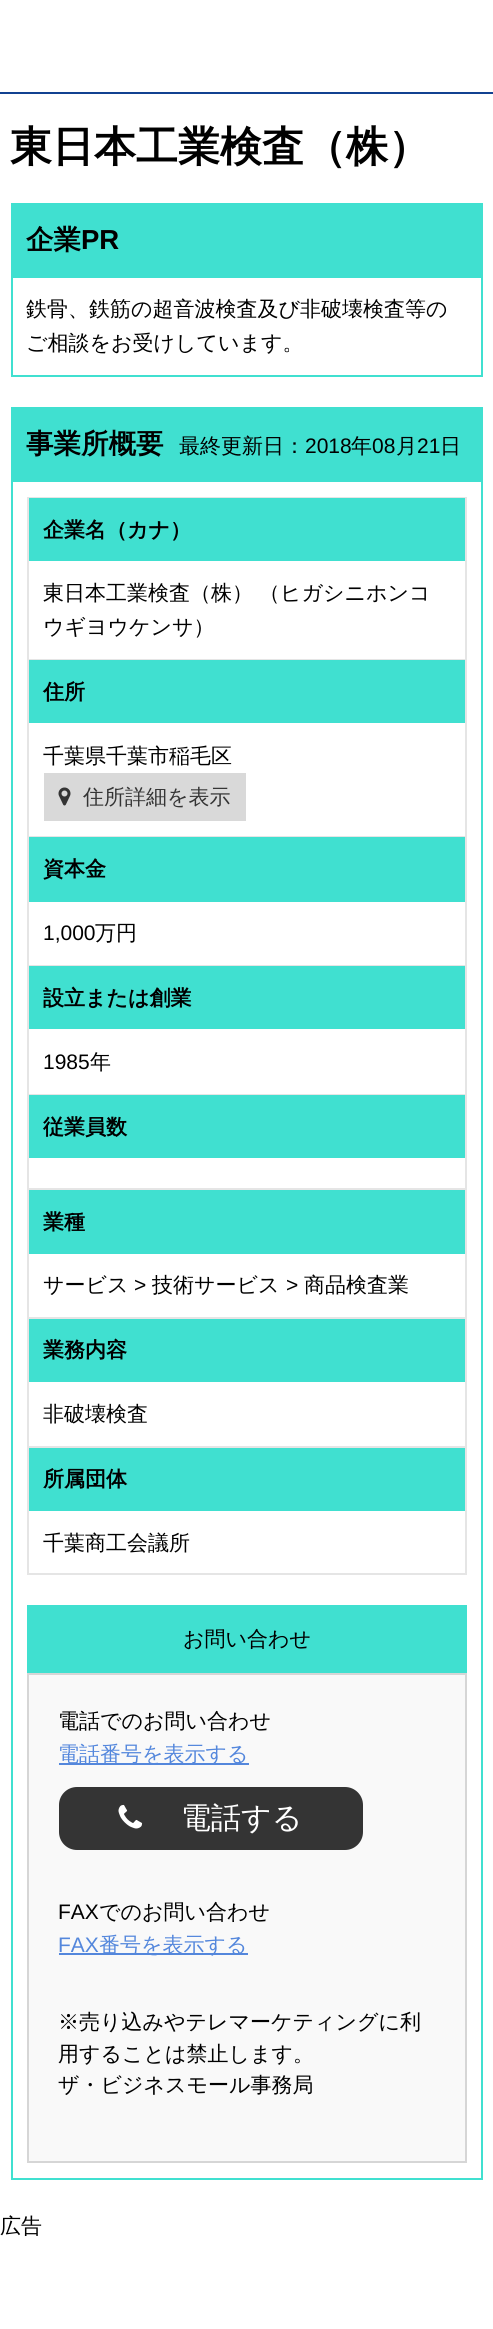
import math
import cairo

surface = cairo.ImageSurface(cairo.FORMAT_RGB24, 493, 2329)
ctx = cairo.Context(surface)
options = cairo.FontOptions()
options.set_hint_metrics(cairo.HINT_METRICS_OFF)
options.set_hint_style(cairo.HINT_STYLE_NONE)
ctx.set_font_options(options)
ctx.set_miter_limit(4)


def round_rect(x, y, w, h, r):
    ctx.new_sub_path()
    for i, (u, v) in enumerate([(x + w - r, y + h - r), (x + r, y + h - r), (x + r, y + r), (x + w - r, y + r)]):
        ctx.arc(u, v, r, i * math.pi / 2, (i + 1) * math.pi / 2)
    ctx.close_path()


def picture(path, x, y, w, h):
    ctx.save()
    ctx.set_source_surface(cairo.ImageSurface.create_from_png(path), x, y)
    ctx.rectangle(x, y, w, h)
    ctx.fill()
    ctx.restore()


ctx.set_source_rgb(1, 1, 1)
ctx.paint()
ctx.set_source_rgb(0.067, 0.255, 0.569)
ctx.rectangle(0, 92, 493, 2)
ctx.fill()
ctx.select_font_face("WenQuanYi Zen Hei", cairo.FONT_SLANT_NORMAL, cairo.FONT_WEIGHT_BOLD)
ctx.set_font_size(42)
ctx.set_source_rgb(0, 0, 0)
ctx.move_to(10, 161)
ctx.show_text("東日本工業検査（株）")
ctx.rectangle(12, 204, 470, 172)
ctx.set_source_rgb(0.251, 0.878, 0.816)
ctx.stroke()
ctx.rectangle(13, 205, 468, 73)
ctx.fill()
ctx.set_font_size(27.5)
ctx.set_source_rgb(0, 0, 0)
ctx.move_to(26, 249)
ctx.show_text("企業")
ctx.select_font_face("Liberation Sans", cairo.FONT_SLANT_NORMAL, cairo.FONT_WEIGHT_BOLD)
ctx.move_to(81, 249)
ctx.show_text("PR")
ctx.select_font_face("WenQuanYi Zen Hei Medium")
ctx.set_font_size(21)
ctx.move_to(26, 316)
ctx.show_text("鉄骨、鉄筋の超音波検査及び非破壊検査等の")
ctx.move_to(26, 350)
ctx.show_text("ご相談をお受けしています。")
ctx.rectangle(12, 408, 470, 1771)
ctx.set_source_rgb(0.251, 0.878, 0.816)
ctx.stroke()
ctx.rectangle(13, 409, 468, 73)
ctx.fill()
ctx.select_font_face("WenQuanYi Zen Hei", cairo.FONT_SLANT_NORMAL, cairo.FONT_WEIGHT_BOLD)
ctx.set_font_size(27.5)
ctx.set_source_rgb(0, 0, 0)
ctx.move_to(26, 453)
ctx.show_text("事業所概要")
ctx.select_font_face("WenQuanYi Zen Hei Medium")
ctx.set_font_size(21)
ctx.move_to(179, 453)
ctx.show_text("最終更新日：")
ctx.select_font_face("Liberation Sans")
ctx.move_to(305, 453)
ctx.show_text("2018")
ctx.select_font_face("WenQuanYi Zen Hei Medium")
ctx.move_to(351, 453)
ctx.show_text("年")
ctx.select_font_face("Liberation Sans")
ctx.move_to(372, 453)
ctx.show_text("08")
ctx.select_font_face("WenQuanYi Zen Hei Medium")
ctx.move_to(396, 453)
ctx.show_text("月")
ctx.select_font_face("Liberation Sans")
ctx.move_to(417, 453)
ctx.show_text("21")
ctx.select_font_face("WenQuanYi Zen Hei Medium")
ctx.move_to(440, 453)
ctx.show_text("日")
ctx.set_source_rgb(0.898, 0.898, 0.898)
ctx.rectangle(27, 497, 440, 1)
ctx.fill()
ctx.rectangle(465, 497, 2, 162)
ctx.fill()
ctx.rectangle(27, 497, 2, 162)
ctx.fill()
ctx.set_source_rgb(0.251, 0.878, 0.816)
ctx.rectangle(29, 498, 436, 63)
ctx.fill()
ctx.select_font_face("WenQuanYi Zen Hei", cairo.FONT_SLANT_NORMAL, cairo.FONT_WEIGHT_BOLD)
ctx.set_source_rgb(0, 0, 0)
ctx.move_to(43, 537)
ctx.show_text("企業名（カナ）")
ctx.select_font_face("WenQuanYi Zen Hei Medium")
ctx.move_to(43, 600)
ctx.show_text("東日本工業検査（株）")
ctx.move_to(259, 600)
ctx.show_text("（ヒガシニホンコ")
ctx.move_to(43, 634)
ctx.show_text("ウギヨウケンサ）")
ctx.set_source_rgb(0.898, 0.898, 0.898)
ctx.rectangle(27, 659, 440, 1)
ctx.fill()
ctx.rectangle(465, 659, 2, 177)
ctx.fill()
ctx.rectangle(27, 659, 2, 177)
ctx.fill()
ctx.set_source_rgb(0.251, 0.878, 0.816)
ctx.rectangle(29, 660, 436, 63)
ctx.fill()
ctx.select_font_face("WenQuanYi Zen Hei", cairo.FONT_SLANT_NORMAL, cairo.FONT_WEIGHT_BOLD)
ctx.set_source_rgb(0, 0, 0)
ctx.move_to(43, 699)
ctx.show_text("住所")
ctx.select_font_face("WenQuanYi Zen Hei Medium")
ctx.move_to(43, 763)
ctx.show_text("千葉県千葉市稲毛区")
ctx.set_source_rgb(0.851, 0.851, 0.851)
ctx.rectangle(44, 773, 202, 48)
ctx.fill()
picture("img1.png", 58, 787, 13, 19)
ctx.set_source_rgb(0.204, 0.204, 0.204)
ctx.move_to(83, 804)
ctx.show_text("住所詳細を表示")
ctx.set_source_rgb(0.898, 0.898, 0.898)
ctx.rectangle(27, 836, 440, 1)
ctx.fill()
ctx.rectangle(465, 836, 2, 129)
ctx.fill()
ctx.rectangle(27, 836, 2, 129)
ctx.fill()
ctx.set_source_rgb(0.251, 0.878, 0.816)
ctx.rectangle(29, 837, 436, 65)
ctx.fill()
ctx.select_font_face("WenQuanYi Zen Hei", cairo.FONT_SLANT_NORMAL, cairo.FONT_WEIGHT_BOLD)
ctx.set_source_rgb(0, 0, 0)
ctx.move_to(43, 876)
ctx.show_text("資本金")
ctx.select_font_face("Liberation Sans")
ctx.move_to(43, 940)
ctx.show_text("1,000")
ctx.select_font_face("WenQuanYi Zen Hei Medium")
ctx.move_to(95, 940)
ctx.show_text("万円")
ctx.set_source_rgb(0.898, 0.898, 0.898)
ctx.rectangle(27, 965, 440, 1)
ctx.fill()
ctx.rectangle(465, 965, 2, 129)
ctx.fill()
ctx.rectangle(27, 965, 2, 129)
ctx.fill()
ctx.set_source_rgb(0.251, 0.878, 0.816)
ctx.rectangle(29, 966, 436, 63)
ctx.fill()
ctx.select_font_face("WenQuanYi Zen Hei", cairo.FONT_SLANT_NORMAL, cairo.FONT_WEIGHT_BOLD)
ctx.set_source_rgb(0, 0, 0)
ctx.move_to(43, 1005)
ctx.show_text("設立または創業")
ctx.select_font_face("Liberation Sans")
ctx.move_to(43, 1069)
ctx.show_text("1985")
ctx.select_font_face("WenQuanYi Zen Hei Medium")
ctx.move_to(90, 1069)
ctx.show_text("年")
ctx.set_source_rgb(0.898, 0.898, 0.898)
ctx.rectangle(27, 1094, 440, 1)
ctx.fill()
ctx.rectangle(465, 1094, 2, 94)
ctx.fill()
ctx.rectangle(27, 1094, 2, 94)
ctx.fill()
ctx.set_source_rgb(0.251, 0.878, 0.816)
ctx.rectangle(29, 1095, 436, 63)
ctx.fill()
ctx.select_font_face("WenQuanYi Zen Hei", cairo.FONT_SLANT_NORMAL, cairo.FONT_WEIGHT_BOLD)
ctx.set_source_rgb(0, 0, 0)
ctx.move_to(43, 1134)
ctx.show_text("従業員数")
ctx.set_source_rgb(0.898, 0.898, 0.898)
ctx.rectangle(27, 1188, 440, 2)
ctx.fill()
ctx.rectangle(465, 1188, 2, 129)
ctx.fill()
ctx.rectangle(27, 1188, 2, 129)
ctx.fill()
ctx.set_source_rgb(0.251, 0.878, 0.816)
ctx.rectangle(29, 1190, 436, 64)
ctx.fill()
ctx.set_source_rgb(0, 0, 0)
ctx.move_to(43, 1229)
ctx.show_text("業種")
ctx.select_font_face("WenQuanYi Zen Hei Medium")
ctx.move_to(43, 1292)
ctx.show_text("サービス")
ctx.select_font_face("Liberation Sans")
ctx.move_to(134, 1292)
ctx.show_text(">")
ctx.select_font_face("WenQuanYi Zen Hei Medium")
ctx.move_to(152, 1292)
ctx.show_text("技術サービス")
ctx.select_font_face("Liberation Sans")
ctx.move_to(286, 1292)
ctx.show_text(">")
ctx.select_font_face("WenQuanYi Zen Hei Medium")
ctx.move_to(304, 1292)
ctx.show_text("商品検査業")
ctx.set_source_rgb(0.898, 0.898, 0.898)
ctx.rectangle(27, 1317, 440, 2)
ctx.fill()
ctx.rectangle(465, 1317, 2, 129)
ctx.fill()
ctx.rectangle(27, 1317, 2, 129)
ctx.fill()
ctx.set_source_rgb(0.251, 0.878, 0.816)
ctx.rectangle(29, 1319, 436, 63)
ctx.fill()
ctx.select_font_face("WenQuanYi Zen Hei", cairo.FONT_SLANT_NORMAL, cairo.FONT_WEIGHT_BOLD)
ctx.set_source_rgb(0, 0, 0)
ctx.move_to(43, 1357)
ctx.show_text("業務内容")
ctx.select_font_face("WenQuanYi Zen Hei Medium")
ctx.move_to(43, 1421)
ctx.show_text("非破壊検査")
ctx.rectangle(28, 1447, 438, 127)
ctx.set_source_rgb(0.898, 0.898, 0.898)
ctx.stroke()
ctx.set_source_rgb(0.251, 0.878, 0.816)
ctx.rectangle(29, 1448, 436, 63)
ctx.fill()
ctx.select_font_face("WenQuanYi Zen Hei", cairo.FONT_SLANT_NORMAL, cairo.FONT_WEIGHT_BOLD)
ctx.set_source_rgb(0, 0, 0)
ctx.move_to(43, 1486)
ctx.show_text("所属団体")
ctx.select_font_face("WenQuanYi Zen Hei Medium")
ctx.move_to(43, 1550)
ctx.show_text("千葉商工会議所")
ctx.set_source_rgb(0.251, 0.878, 0.816)
ctx.rectangle(27, 1605, 440, 68)
ctx.fill()
ctx.set_source_rgb(0, 0, 0)
ctx.move_to(183, 1646)
ctx.show_text("お問い合わせ")
ctx.set_source_rgb(0.976, 0.976, 0.976)
ctx.rectangle(28, 1674, 438, 488)
ctx.fill_preserve()
ctx.set_source_rgb(0.839, 0.839, 0.839)
ctx.stroke()
ctx.set_source_rgb(0, 0, 0)
ctx.move_to(58, 1728)
ctx.show_text("電話でのお問い合わせ")
ctx.set_source_rgb(0.329, 0.529, 0.863)
ctx.rectangle(59, 1763, 190, 2)
ctx.fill()
ctx.move_to(58, 1761)
ctx.show_text("電話番号を表示する")
ctx.set_source_rgb(0.204, 0.204, 0.204)
round_rect(59, 1787, 304, 63, 18)
ctx.fill()
picture("img2.png", 118, 1804, 25, 25)
ctx.set_font_size(30)
ctx.set_source_rgb(1, 1, 1)
ctx.move_to(181, 1828)
ctx.show_text("電話する")
ctx.select_font_face("Liberation Sans")
ctx.set_font_size(21)
ctx.set_source_rgb(0, 0, 0)
ctx.move_to(58, 1919)
ctx.show_text("FAX")
ctx.select_font_face("WenQuanYi Zen Hei Medium")
ctx.move_to(99, 1919)
ctx.show_text("でのお問い合わせ")
ctx.select_font_face("Liberation Sans")
ctx.set_source_rgb(0.329, 0.529, 0.863)
ctx.move_to(58, 1952)
ctx.show_text("FAX")
ctx.rectangle(59, 1953, 189, 2)
ctx.fill()
ctx.select_font_face("WenQuanYi Zen Hei Medium")
ctx.move_to(99, 1952)
ctx.show_text("番号を表示する")
ctx.set_source_rgb(0, 0, 0)
ctx.move_to(58, 2029)
ctx.show_text("※売り込みやテレマーケティングに利")
ctx.move_to(58, 2061)
ctx.show_text("用することは禁止します。")
ctx.move_to(58, 2092)
ctx.show_text("ザ・ビジネスモール事務局")
ctx.move_to(0, 2233)
ctx.show_text("広告")
surface.write_to_png("page.png")
